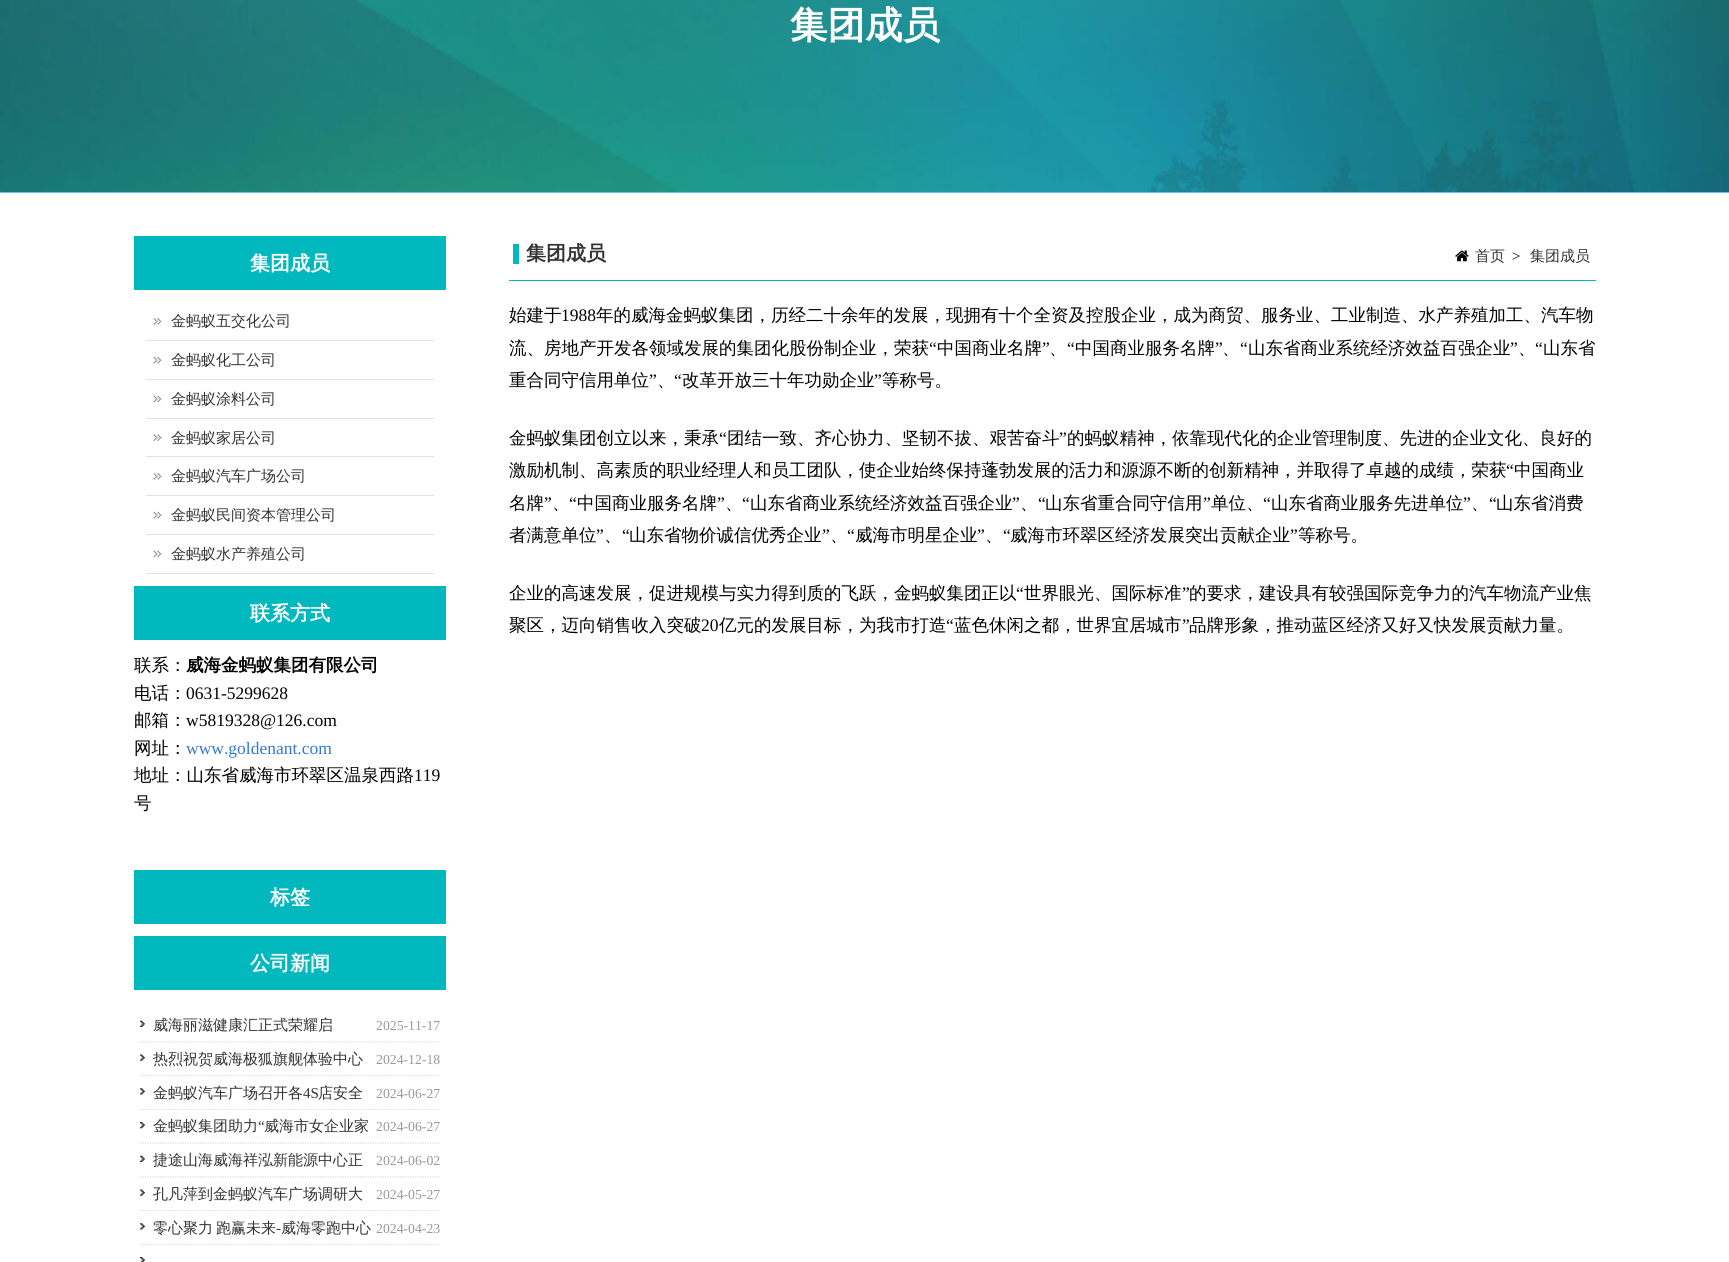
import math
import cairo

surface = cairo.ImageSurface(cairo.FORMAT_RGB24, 1729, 1262)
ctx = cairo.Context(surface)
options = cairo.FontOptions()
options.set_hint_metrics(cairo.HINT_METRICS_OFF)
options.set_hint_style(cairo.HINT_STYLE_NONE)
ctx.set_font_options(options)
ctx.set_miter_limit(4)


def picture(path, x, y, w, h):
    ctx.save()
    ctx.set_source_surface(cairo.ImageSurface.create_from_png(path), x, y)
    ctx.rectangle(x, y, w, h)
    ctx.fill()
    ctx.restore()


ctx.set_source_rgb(1, 1, 1)
ctx.paint()
ctx.set_source_rgb(0.455, 0.733, 0.945)
ctx.rectangle(0, 192, 1729, 1)
ctx.fill()
picture("img1.png", 0, 0, 1729, 192)
ctx.select_font_face("WenQuanYi Zen Hei", cairo.FONT_SLANT_NORMAL, cairo.FONT_WEIGHT_BOLD)
ctx.set_font_size(37.5)
ctx.set_source_rgb(1, 1, 1)
ctx.move_to(790, 38)
ctx.show_text("集团成员")
ctx.set_source_rgb(0, 0.722, 0.745)
ctx.rectangle(134, 236, 312, 54)
ctx.fill()
ctx.set_font_size(20)
ctx.set_source_rgb(1, 1, 1)
ctx.move_to(250, 270)
ctx.show_text("集团成员")
ctx.set_source_rgb(0.886, 0.886, 0.886)
ctx.rectangle(146, 340, 288, 1)
ctx.fill()
picture("img2.png", 153, 318, 9, 7)
ctx.select_font_face("WenQuanYi Zen Hei Medium")
ctx.set_font_size(15)
ctx.set_source_rgb(0.2, 0.2, 0.2)
ctx.move_to(171, 326)
ctx.show_text("金蚂蚁五交化公司")
ctx.set_source_rgb(0.886, 0.886, 0.886)
ctx.rectangle(146, 379, 288, 1)
ctx.fill()
picture("img3.png", 153, 356, 9, 8)
ctx.set_source_rgb(0.2, 0.2, 0.2)
ctx.move_to(171, 365)
ctx.show_text("金蚂蚁化工公司")
ctx.set_source_rgb(0.886, 0.886, 0.886)
ctx.rectangle(146, 418, 288, 1)
ctx.fill()
picture("img4.png", 153, 395, 9, 8)
ctx.set_source_rgb(0.2, 0.2, 0.2)
ctx.move_to(171, 404)
ctx.show_text("金蚂蚁涂料公司")
ctx.set_source_rgb(0.886, 0.886, 0.886)
ctx.rectangle(146, 456, 288, 1)
ctx.fill()
picture("img5.png", 153, 434, 9, 7)
ctx.set_source_rgb(0.2, 0.2, 0.2)
ctx.move_to(171, 443)
ctx.show_text("金蚂蚁家居公司")
ctx.set_source_rgb(0.886, 0.886, 0.886)
ctx.rectangle(146, 495, 288, 1)
ctx.fill()
picture("img2.png", 153, 473, 9, 7)
ctx.set_source_rgb(0.2, 0.2, 0.2)
ctx.move_to(171, 481)
ctx.show_text("金蚂蚁汽车广场公司")
ctx.set_source_rgb(0.886, 0.886, 0.886)
ctx.rectangle(146, 534, 288, 1)
ctx.fill()
picture("img3.png", 153, 511, 9, 8)
ctx.set_source_rgb(0.2, 0.2, 0.2)
ctx.move_to(171, 520)
ctx.show_text("金蚂蚁民间资本管理公司")
ctx.set_source_rgb(0.886, 0.886, 0.886)
ctx.rectangle(146, 573, 288, 1)
ctx.fill()
picture("img4.png", 153, 550, 9, 8)
ctx.set_source_rgb(0.2, 0.2, 0.2)
ctx.move_to(171, 559)
ctx.show_text("金蚂蚁水产养殖公司")
ctx.set_source_rgb(0, 0.722, 0.745)
ctx.rectangle(134, 586, 312, 54)
ctx.fill()
ctx.select_font_face("WenQuanYi Zen Hei", cairo.FONT_SLANT_NORMAL, cairo.FONT_WEIGHT_BOLD)
ctx.set_font_size(20)
ctx.set_source_rgb(1, 1, 1)
ctx.move_to(250, 620)
ctx.show_text("联系方式")
ctx.select_font_face("WenQuanYi Zen Hei Medium")
ctx.set_font_size(17.5)
ctx.set_source_rgb(0, 0, 0)
ctx.move_to(134, 671)
ctx.show_text("联系：")
ctx.select_font_face("WenQuanYi Zen Hei", cairo.FONT_SLANT_NORMAL, cairo.FONT_WEIGHT_BOLD)
ctx.move_to(186, 671)
ctx.show_text("威海金蚂蚁集团有限公司")
ctx.select_font_face("WenQuanYi Zen Hei Medium")
ctx.move_to(134, 699)
ctx.show_text("电话：")
ctx.select_font_face("Liberation Serif")
ctx.move_to(186, 699)
ctx.show_text("0631-5299628")
ctx.select_font_face("WenQuanYi Zen Hei Medium")
ctx.move_to(134, 726)
ctx.show_text("邮箱：")
ctx.select_font_face("Liberation Serif")
ctx.move_to(186, 726)
ctx.show_text("w5819328@126.com")
ctx.select_font_face("WenQuanYi Zen Hei Medium")
ctx.move_to(134, 754)
ctx.show_text("网址：")
ctx.select_font_face("Liberation Serif")
ctx.set_source_rgb(0.204, 0.478, 0.816)
ctx.move_to(186, 754)
ctx.show_text("www.goldenant.com")
ctx.select_font_face("WenQuanYi Zen Hei Medium")
ctx.set_source_rgb(0, 0, 0)
ctx.move_to(134, 781)
ctx.show_text("地址：山东省威海市环翠区温泉西路")
ctx.select_font_face("Liberation Serif")
ctx.move_to(414, 781)
ctx.show_text("119")
ctx.select_font_face("WenQuanYi Zen Hei Medium")
ctx.move_to(134, 809)
ctx.show_text("号")
ctx.set_source_rgb(0, 0.722, 0.745)
ctx.rectangle(134, 870, 312, 54)
ctx.fill()
ctx.select_font_face("WenQuanYi Zen Hei", cairo.FONT_SLANT_NORMAL, cairo.FONT_WEIGHT_BOLD)
ctx.set_font_size(20)
ctx.set_source_rgb(1, 1, 1)
ctx.move_to(270, 904)
ctx.show_text("标签")
ctx.set_source_rgb(0, 0.722, 0.745)
ctx.rectangle(134, 936, 312, 54)
ctx.fill()
ctx.set_source_rgb(1, 1, 1)
ctx.move_to(250, 970)
ctx.show_text("公司新闻")
picture("img6.png", 140, 1020, 5, 7)
ctx.new_path()
ctx.move_to(140, 1042)
ctx.line_to(440, 1042)
ctx.set_source_rgb(0.867, 0.867, 0.867)
ctx.set_line_width(1.2)
ctx.set_dash([1.25, 1.25])
ctx.stroke()
ctx.select_font_face("WenQuanYi Zen Hei Medium")
ctx.set_font_size(15)
ctx.set_source_rgb(0.2, 0.2, 0.2)
ctx.move_to(153, 1030)
ctx.show_text("威海丽滋健康汇正式荣耀启")
ctx.select_font_face("Liberation Serif")
ctx.set_font_size(13.75)
ctx.set_source_rgb(0.6, 0.6, 0.6)
ctx.move_to(376, 1030)
ctx.show_text("2025-11-17")
picture("img7.png", 140, 1054, 5, 7)
ctx.new_path()
ctx.move_to(140, 1075.5)
ctx.line_to(440, 1075.5)
ctx.set_source_rgb(0.867, 0.867, 0.867)
ctx.stroke()
ctx.select_font_face("WenQuanYi Zen Hei Medium")
ctx.set_font_size(15)
ctx.set_source_rgb(0.2, 0.2, 0.2)
ctx.move_to(153, 1064)
ctx.show_text("热烈祝贺威海极狐旗舰体验中心")
ctx.select_font_face("Liberation Serif")
ctx.set_font_size(13.75)
ctx.set_source_rgb(0.6, 0.6, 0.6)
ctx.move_to(376, 1064)
ctx.show_text("2024-12-18")
picture("img8.png", 140, 1088, 5, 7)
ctx.new_path()
ctx.move_to(140, 1109.5)
ctx.line_to(440, 1109.5)
ctx.set_source_rgb(0.867, 0.867, 0.867)
ctx.stroke()
ctx.select_font_face("WenQuanYi Zen Hei Medium")
ctx.set_font_size(15)
ctx.set_source_rgb(0.2, 0.2, 0.2)
ctx.move_to(153, 1098)
ctx.show_text("金蚂蚁汽车广场召开各")
ctx.select_font_face("Liberation Serif")
ctx.move_to(303, 1098)
ctx.show_text("4S")
ctx.select_font_face("WenQuanYi Zen Hei Medium")
ctx.move_to(318, 1098)
ctx.show_text("店安全")
ctx.select_font_face("Liberation Serif")
ctx.set_font_size(13.75)
ctx.set_source_rgb(0.6, 0.6, 0.6)
ctx.move_to(376, 1098)
ctx.show_text("2024-06-27")
picture("img9.png", 140, 1122, 5, 7)
ctx.new_path()
ctx.move_to(140, 1143)
ctx.line_to(440, 1143)
ctx.set_source_rgb(0.867, 0.867, 0.867)
ctx.stroke()
ctx.select_font_face("WenQuanYi Zen Hei Medium")
ctx.set_font_size(15)
ctx.set_source_rgb(0.2, 0.2, 0.2)
ctx.move_to(153, 1131)
ctx.show_text("金蚂蚁集团助力")
ctx.select_font_face("Liberation Serif")
ctx.move_to(258, 1131)
ctx.show_text("“")
ctx.select_font_face("WenQuanYi Zen Hei Medium")
ctx.move_to(264, 1131)
ctx.show_text("威海市女企业家")
ctx.select_font_face("Liberation Serif")
ctx.set_font_size(13.75)
ctx.set_source_rgb(0.6, 0.6, 0.6)
ctx.move_to(376, 1131)
ctx.show_text("2024-06-27")
picture("img6.png", 140, 1155, 5, 7)
ctx.new_path()
ctx.move_to(140, 1177)
ctx.line_to(440, 1177)
ctx.set_source_rgb(0.867, 0.867, 0.867)
ctx.stroke()
ctx.select_font_face("WenQuanYi Zen Hei Medium")
ctx.set_font_size(15)
ctx.set_source_rgb(0.2, 0.2, 0.2)
ctx.move_to(153, 1165)
ctx.show_text("捷途山海威海祥泓新能源中心正")
ctx.select_font_face("Liberation Serif")
ctx.set_font_size(13.75)
ctx.set_source_rgb(0.6, 0.6, 0.6)
ctx.move_to(376, 1165)
ctx.show_text("2024-06-02")
picture("img7.png", 140, 1189, 5, 7)
ctx.new_path()
ctx.move_to(140, 1210.5)
ctx.line_to(440, 1210.5)
ctx.set_source_rgb(0.867, 0.867, 0.867)
ctx.stroke()
ctx.select_font_face("WenQuanYi Zen Hei Medium")
ctx.set_font_size(15)
ctx.set_source_rgb(0.2, 0.2, 0.2)
ctx.move_to(153, 1199)
ctx.show_text("孔凡萍到金蚂蚁汽车广场调研大")
ctx.select_font_face("Liberation Serif")
ctx.set_font_size(13.75)
ctx.set_source_rgb(0.6, 0.6, 0.6)
ctx.move_to(376, 1199)
ctx.show_text("2024-05-27")
picture("img8.png", 140, 1223, 5, 7)
ctx.new_path()
ctx.move_to(140, 1244.5)
ctx.line_to(440, 1244.5)
ctx.set_source_rgb(0.867, 0.867, 0.867)
ctx.stroke()
ctx.select_font_face("WenQuanYi Zen Hei Medium")
ctx.set_font_size(15)
ctx.set_source_rgb(0.2, 0.2, 0.2)
ctx.move_to(153, 1233)
ctx.show_text("零心聚力")
ctx.move_to(216, 1233)
ctx.show_text("跑赢未来")
ctx.select_font_face("Liberation Serif")
ctx.move_to(276, 1233)
ctx.show_text("-")
ctx.select_font_face("WenQuanYi Zen Hei Medium")
ctx.move_to(281, 1233)
ctx.show_text("威海零跑中心")
ctx.select_font_face("Liberation Serif")
ctx.set_font_size(13.75)
ctx.set_source_rgb(0.6, 0.6, 0.6)
ctx.move_to(376, 1233)
ctx.show_text("2024-04-23")
picture("img10.png", 140, 1257, 5, 5)
ctx.set_source_rgb(0, 0.722, 0.745)
ctx.rectangle(509, 280, 1087, 1)
ctx.fill()
ctx.rectangle(513, 244, 6, 20)
ctx.fill()
ctx.select_font_face("WenQuanYi Zen Hei", cairo.FONT_SLANT_NORMAL, cairo.FONT_WEIGHT_BOLD)
ctx.set_font_size(20)
ctx.set_source_rgb(0.2, 0.2, 0.2)
ctx.move_to(526, 260)
ctx.show_text("集团成员")
picture("img11.png", 1455, 250, 14, 12)
ctx.select_font_face("WenQuanYi Zen Hei Medium")
ctx.set_font_size(15)
ctx.move_to(1475, 261)
ctx.show_text("首页")
ctx.select_font_face("Liberation Serif")
ctx.set_source_rgb(0, 0, 0)
ctx.move_to(1512, 261)
ctx.show_text(">")
ctx.select_font_face("WenQuanYi Zen Hei Medium")
ctx.set_source_rgb(0.2, 0.2, 0.2)
ctx.move_to(1530, 261)
ctx.show_text("集团成员")
ctx.set_font_size(17.5)
ctx.set_source_rgb(0, 0, 0)
ctx.move_to(509, 321)
ctx.show_text("始建于")
ctx.select_font_face("Liberation Serif")
ctx.move_to(561, 321)
ctx.show_text("1988")
ctx.select_font_face("WenQuanYi Zen Hei Medium")
ctx.move_to(596, 321)
ctx.show_text("年的威海金蚂蚁集团，历经二十余年的发展，现拥有十个全资及控股企业，成为商贸、服务业、工业制造、水产养殖加工、汽车物")
ctx.move_to(509, 354)
ctx.show_text("流、房地产开发各领域发展的集团化股份制企业，荣获")
ctx.select_font_face("Liberation Serif")
ctx.move_to(929, 354)
ctx.show_text("“")
ctx.select_font_face("WenQuanYi Zen Hei Medium")
ctx.move_to(937, 354)
ctx.show_text("中国商业名牌")
ctx.select_font_face("Liberation Serif")
ctx.move_to(1042, 354)
ctx.show_text("”")
ctx.move_to(1067, 354)
ctx.show_text("“")
ctx.select_font_face("WenQuanYi Zen Hei Medium")
ctx.move_to(1075, 354)
ctx.show_text("中国商业服务名牌")
ctx.select_font_face("Liberation Serif")
ctx.move_to(1215, 354)
ctx.show_text("”")
ctx.move_to(1240, 354)
ctx.show_text("“")
ctx.select_font_face("WenQuanYi Zen Hei Medium")
ctx.move_to(1248, 354)
ctx.show_text("山东省商业系统经济效益百强企业")
ctx.select_font_face("Liberation Serif")
ctx.move_to(1510, 354)
ctx.show_text("”")
ctx.move_to(1535, 354)
ctx.show_text("“")
ctx.select_font_face("WenQuanYi Zen Hei Medium")
ctx.move_to(1543, 354)
ctx.show_text("山东省")
ctx.move_to(1049, 354)
ctx.show_text("、")
ctx.move_to(1222, 354)
ctx.show_text("、")
ctx.move_to(1518, 354)
ctx.show_text("、")
ctx.move_to(509, 386)
ctx.show_text("重合同守信用单位")
ctx.select_font_face("Liberation Serif")
ctx.move_to(649, 386)
ctx.show_text("”")
ctx.move_to(674, 386)
ctx.show_text("“")
ctx.select_font_face("WenQuanYi Zen Hei Medium")
ctx.move_to(682, 386)
ctx.show_text("改革开放三十年功勋企业")
ctx.select_font_face("Liberation Serif")
ctx.move_to(874, 386)
ctx.show_text("”")
ctx.select_font_face("WenQuanYi Zen Hei Medium")
ctx.move_to(882, 386)
ctx.show_text("等称号。")
ctx.move_to(657, 386)
ctx.show_text("、")
ctx.move_to(509, 444)
ctx.show_text("金蚂蚁集团创立以来，秉承")
ctx.select_font_face("Liberation Serif")
ctx.move_to(719, 444)
ctx.show_text("“")
ctx.select_font_face("WenQuanYi Zen Hei Medium")
ctx.move_to(727, 444)
ctx.show_text("团结一致、齐心协力、坚韧不拔、艰苦奋斗")
ctx.select_font_face("Liberation Serif")
ctx.move_to(1059, 444)
ctx.show_text("”")
ctx.select_font_face("WenQuanYi Zen Hei Medium")
ctx.move_to(1067, 444)
ctx.show_text("的蚂蚁精神，依靠现代化的企业管理制度、先进的企业文化、良好的")
ctx.move_to(509, 476)
ctx.show_text("激励机制、高素质的职业经理人和员工团队，使企业始终保持蓬勃发展的活力和源源不断的创新精神，并取得了卓越的成绩，荣获")
ctx.select_font_face("Liberation Serif")
ctx.move_to(1506, 476)
ctx.show_text("“")
ctx.select_font_face("WenQuanYi Zen Hei Medium")
ctx.move_to(1514, 476)
ctx.show_text("中国商业")
ctx.move_to(509, 509)
ctx.show_text("名牌")
ctx.select_font_face("Liberation Serif")
ctx.move_to(544, 509)
ctx.show_text("”")
ctx.move_to(569, 509)
ctx.show_text("“")
ctx.select_font_face("WenQuanYi Zen Hei Medium")
ctx.move_to(577, 509)
ctx.show_text("中国商业服务名牌")
ctx.select_font_face("Liberation Serif")
ctx.move_to(717, 509)
ctx.show_text("”")
ctx.move_to(742, 509)
ctx.show_text("“")
ctx.select_font_face("WenQuanYi Zen Hei Medium")
ctx.move_to(750, 509)
ctx.show_text("山东省商业系统经济效益百强企业")
ctx.select_font_face("Liberation Serif")
ctx.move_to(1012, 509)
ctx.show_text("”")
ctx.move_to(1038, 509)
ctx.show_text("“")
ctx.select_font_face("WenQuanYi Zen Hei Medium")
ctx.move_to(1045, 509)
ctx.show_text("山东省重合同守信用")
ctx.select_font_face("Liberation Serif")
ctx.move_to(1203, 509)
ctx.show_text("”")
ctx.select_font_face("WenQuanYi Zen Hei Medium")
ctx.move_to(1211, 509)
ctx.show_text("单位、")
ctx.select_font_face("Liberation Serif")
ctx.move_to(1263, 509)
ctx.show_text("“")
ctx.select_font_face("WenQuanYi Zen Hei Medium")
ctx.move_to(1271, 509)
ctx.show_text("山东省商业服务先进单位")
ctx.select_font_face("Liberation Serif")
ctx.move_to(1463, 509)
ctx.show_text("”")
ctx.move_to(1489, 509)
ctx.show_text("“")
ctx.select_font_face("WenQuanYi Zen Hei Medium")
ctx.move_to(1496, 509)
ctx.show_text("山东省消费")
ctx.move_to(552, 509)
ctx.show_text("、")
ctx.move_to(725, 509)
ctx.show_text("、")
ctx.move_to(1020, 509)
ctx.show_text("、")
ctx.move_to(1471, 509)
ctx.show_text("、")
ctx.move_to(509, 541)
ctx.show_text("者满意单位")
ctx.select_font_face("Liberation Serif")
ctx.move_to(596, 541)
ctx.show_text("”")
ctx.move_to(622, 541)
ctx.show_text("“")
ctx.select_font_face("WenQuanYi Zen Hei Medium")
ctx.move_to(629, 541)
ctx.show_text("山东省物价诚信优秀企业")
ctx.select_font_face("Liberation Serif")
ctx.move_to(822, 541)
ctx.show_text("”")
ctx.move_to(847, 541)
ctx.show_text("“")
ctx.select_font_face("WenQuanYi Zen Hei Medium")
ctx.move_to(855, 541)
ctx.show_text("威海市明星企业")
ctx.select_font_face("Liberation Serif")
ctx.move_to(977, 541)
ctx.show_text("”")
ctx.move_to(1003, 541)
ctx.show_text("“")
ctx.select_font_face("WenQuanYi Zen Hei Medium")
ctx.move_to(1010, 541)
ctx.show_text("威海市环翠区经济发展突出贡献企业")
ctx.select_font_face("Liberation Serif")
ctx.move_to(1290, 541)
ctx.show_text("”")
ctx.select_font_face("WenQuanYi Zen Hei Medium")
ctx.move_to(1298, 541)
ctx.show_text("等称号。")
ctx.move_to(604, 541)
ctx.show_text("、")
ctx.move_to(830, 541)
ctx.show_text("、")
ctx.move_to(985, 541)
ctx.show_text("、")
ctx.move_to(509, 599)
ctx.show_text("企业的高速发展，促进规模与实力得到质的飞跃，金蚂蚁集团正以")
ctx.select_font_face("Liberation Serif")
ctx.move_to(1016, 599)
ctx.show_text("“")
ctx.select_font_face("WenQuanYi Zen Hei Medium")
ctx.move_to(1024, 599)
ctx.show_text("世界眼光、国际标准")
ctx.select_font_face("Liberation Serif")
ctx.move_to(1182, 599)
ctx.show_text("”")
ctx.select_font_face("WenQuanYi Zen Hei Medium")
ctx.move_to(1189, 599)
ctx.show_text("的要求，建设具有较强国际竞争力的汽车物流产业焦")
ctx.move_to(509, 631)
ctx.show_text("聚区，迈向销售收入突破")
ctx.select_font_face("Liberation Serif")
ctx.move_to(701, 631)
ctx.show_text("20")
ctx.select_font_face("WenQuanYi Zen Hei Medium")
ctx.move_to(719, 631)
ctx.show_text("亿元的发展目标，为我市打造")
ctx.select_font_face("Liberation Serif")
ctx.move_to(946, 631)
ctx.show_text("“")
ctx.select_font_face("WenQuanYi Zen Hei Medium")
ctx.move_to(954, 631)
ctx.show_text("蓝色休闲之都，世界宜居城市")
ctx.select_font_face("Liberation Serif")
ctx.move_to(1182, 631)
ctx.show_text("”")
ctx.select_font_face("WenQuanYi Zen Hei Medium")
ctx.move_to(1189, 631)
ctx.show_text("品牌形象，推动蓝区经济又好又快发展贡献力量。")
surface.write_to_png("page.png")
